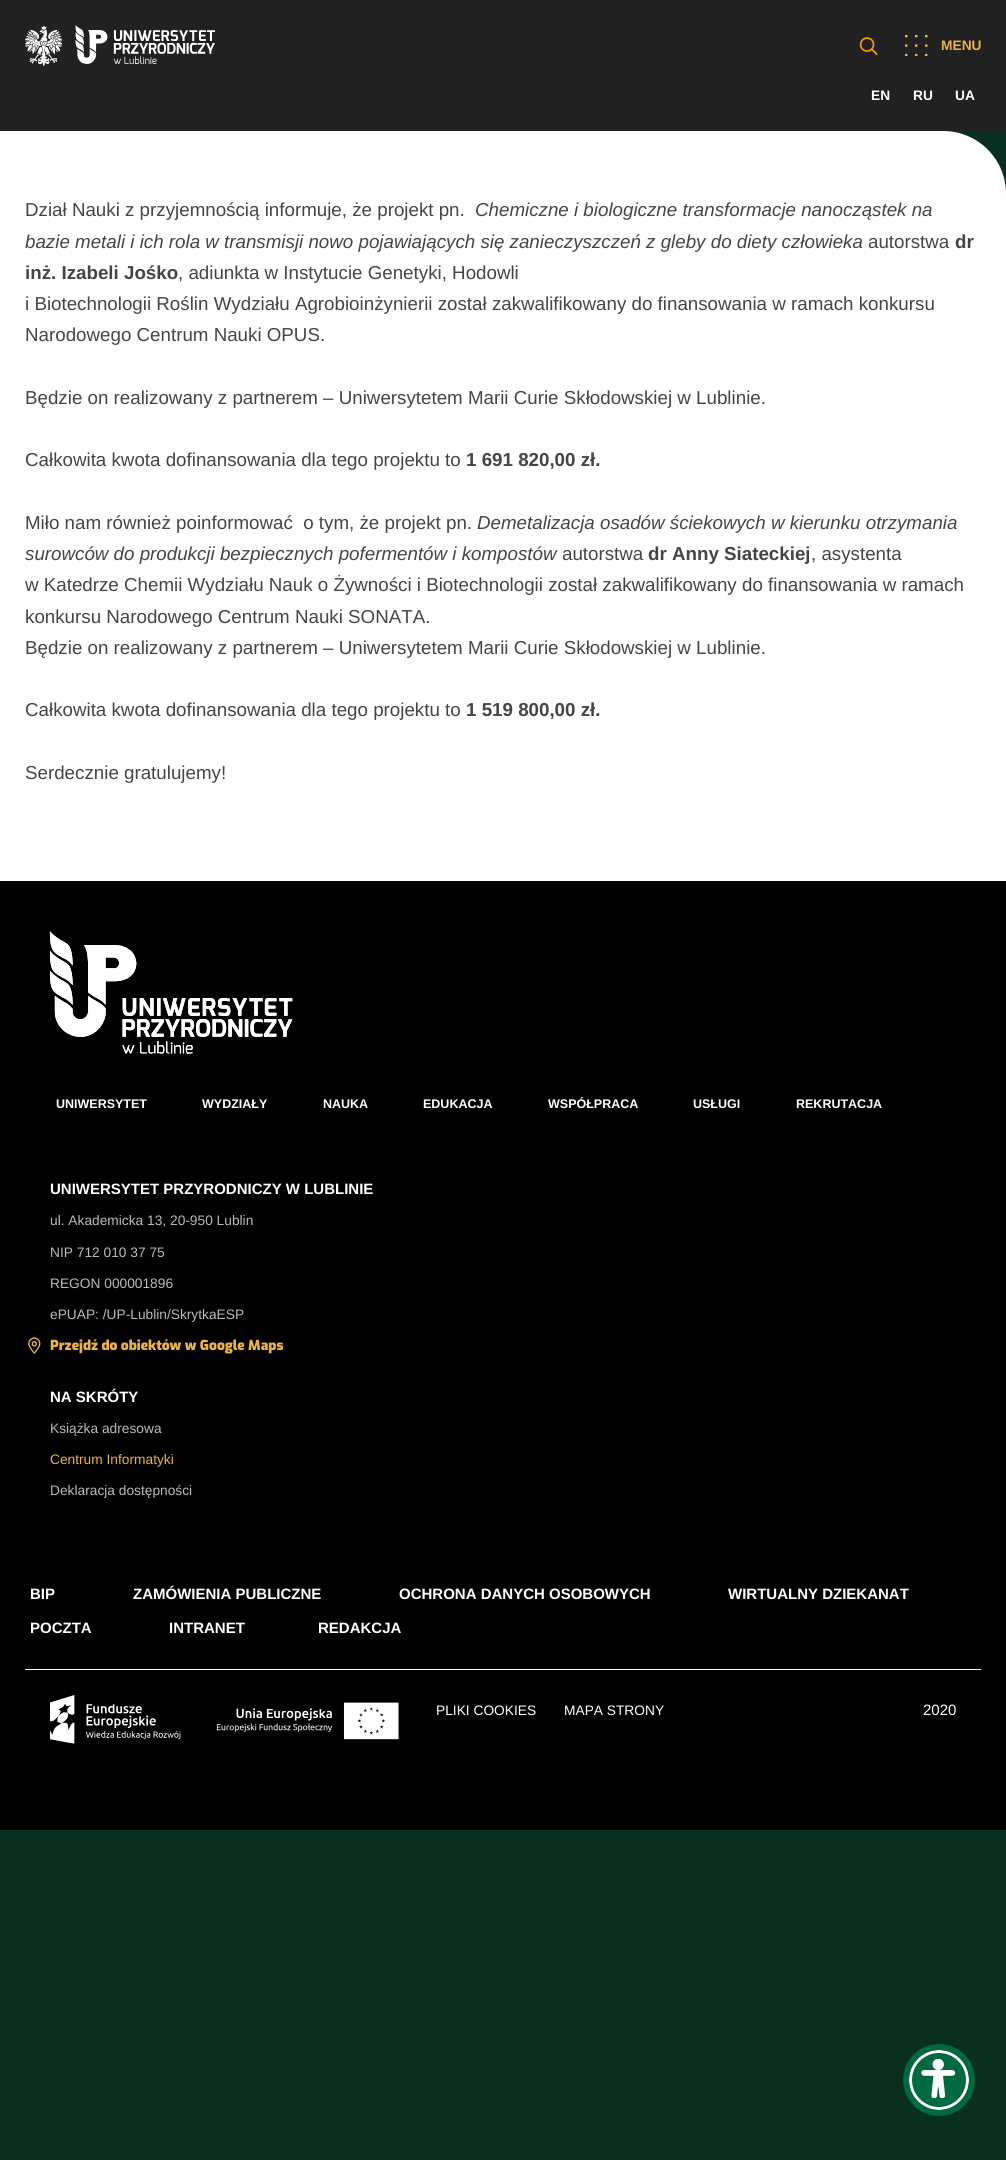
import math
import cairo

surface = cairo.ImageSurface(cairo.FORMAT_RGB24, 1006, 2160)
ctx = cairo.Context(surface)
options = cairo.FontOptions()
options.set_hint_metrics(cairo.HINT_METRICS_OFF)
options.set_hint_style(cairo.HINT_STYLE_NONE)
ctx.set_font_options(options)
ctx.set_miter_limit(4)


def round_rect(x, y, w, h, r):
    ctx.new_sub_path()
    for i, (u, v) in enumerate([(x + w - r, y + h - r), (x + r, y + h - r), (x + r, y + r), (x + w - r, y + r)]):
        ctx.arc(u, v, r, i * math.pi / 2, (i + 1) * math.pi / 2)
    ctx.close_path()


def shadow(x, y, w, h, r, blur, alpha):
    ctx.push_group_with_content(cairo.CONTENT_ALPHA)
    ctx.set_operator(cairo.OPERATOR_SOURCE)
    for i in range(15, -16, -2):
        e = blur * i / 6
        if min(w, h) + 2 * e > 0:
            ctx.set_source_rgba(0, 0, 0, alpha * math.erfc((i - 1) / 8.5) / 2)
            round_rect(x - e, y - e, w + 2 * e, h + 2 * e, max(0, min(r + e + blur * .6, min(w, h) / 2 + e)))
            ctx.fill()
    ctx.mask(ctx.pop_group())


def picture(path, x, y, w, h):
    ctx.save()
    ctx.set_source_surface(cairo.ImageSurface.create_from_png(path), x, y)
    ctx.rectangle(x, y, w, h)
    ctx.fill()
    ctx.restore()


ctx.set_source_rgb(0.035, 0.184, 0.125)
ctx.paint()
ctx.set_source_rgb(0.129, 0.129, 0.129)
ctx.rectangle(0, 0, 1006, 131)
ctx.fill()
picture("img1.png", 25, 25, 190, 41)
picture("img2.png", 859, 37, 19, 19)
picture("img3.png", 905, 35, 23, 21)
ctx.select_font_face("Liberation Sans", cairo.FONT_SLANT_NORMAL, cairo.FONT_WEIGHT_BOLD)
ctx.set_font_size(13.75)
ctx.set_source_rgb(0.925, 0.698, 0.278)
ctx.move_to(941, 50)
ctx.show_text("MENU")
ctx.set_source_rgb(1, 1, 1)
ctx.move_to(871, 100)
ctx.show_text("EN")
ctx.move_to(913, 100)
ctx.show_text("RU")
ctx.move_to(955, 100)
ctx.show_text("UA")
ctx.new_path()
ctx.move_to(0, 131)
ctx.line_to(943, 131)
ctx.curve_to(978, 131, 1006, 159, 1006, 194)
ctx.line_to(1006, 881)
ctx.line_to(0, 881)
ctx.close_path()
ctx.fill()
ctx.select_font_face("Liberation Sans")
ctx.set_font_size(18.75)
ctx.set_source_rgb(0.275, 0.271, 0.271)
ctx.move_to(25, 216)
ctx.show_text("Dział Nauki z przyjemnością informuje, że projekt pn.")
ctx.select_font_face("Liberation Sans", cairo.FONT_SLANT_ITALIC)
ctx.move_to(475, 216)
ctx.show_text("Chemiczne i biologiczne transformacje nanocząstek na")
ctx.move_to(25, 248)
ctx.show_text("bazie metali i ich rola w transmisji nowo pojawiających się zanieczyszczeń z gleby do diety człowieka")
ctx.select_font_face("Liberation Sans")
ctx.move_to(868, 248)
ctx.show_text("autorstwa")
ctx.select_font_face("Liberation Sans", cairo.FONT_SLANT_NORMAL, cairo.FONT_WEIGHT_BOLD)
ctx.move_to(955, 248)
ctx.show_text("dr")
ctx.move_to(25, 279)
ctx.show_text("inż. Izabeli Jośko")
ctx.select_font_face("Liberation Sans")
ctx.move_to(178, 279)
ctx.show_text(", adiunkta w Instytucie Genetyki, Hodowli")
ctx.move_to(25, 310)
ctx.show_text("i Biotechnologii Roślin Wydziału Agrobioinżynierii został zakwalifikowany do finansowania w ramach konkursu")
ctx.move_to(25, 341)
ctx.show_text("Narodowego Centrum Nauki OPUS.")
ctx.move_to(25, 404)
ctx.show_text("Będzie on realizowany z partnerem – Uniwersytetem Marii Curie Skłodowskiej w Lublinie.")
ctx.move_to(25, 466)
ctx.show_text("Całkowita kwota dofinansowania dla tego projektu to")
ctx.select_font_face("Liberation Sans", cairo.FONT_SLANT_NORMAL, cairo.FONT_WEIGHT_BOLD)
ctx.move_to(466, 466)
ctx.show_text("1 691 820,00 zł.")
ctx.select_font_face("Liberation Sans")
ctx.move_to(25, 529)
ctx.show_text("Miło nam również poinformować  o tym, że projekt pn.")
ctx.select_font_face("Liberation Sans", cairo.FONT_SLANT_ITALIC)
ctx.move_to(477, 529)
ctx.show_text("Demetalizacja osadów ściekowych w kierunku otrzymania")
ctx.move_to(25, 560)
ctx.show_text("surowców do produkcji bezpiecznych pofermentów i kompostów")
ctx.select_font_face("Liberation Sans")
ctx.move_to(562, 560)
ctx.show_text("autorstwa")
ctx.select_font_face("Liberation Sans", cairo.FONT_SLANT_NORMAL, cairo.FONT_WEIGHT_BOLD)
ctx.move_to(648, 560)
ctx.show_text("dr Anny Siateckiej")
ctx.select_font_face("Liberation Sans")
ctx.move_to(811, 560)
ctx.show_text(", asystenta")
ctx.move_to(25, 591)
ctx.show_text("w Katedrze Chemii Wydziału Nauk o Żywności i Biotechnologii został zakwalifikowany do finansowania w ramach")
ctx.move_to(25, 623)
ctx.show_text("konkursu Narodowego Centrum Nauki SONATA.")
ctx.move_to(25, 654)
ctx.show_text("Będzie on realizowany z partnerem – Uniwersytetem Marii Curie Skłodowskiej w Lublinie.")
ctx.move_to(25, 716)
ctx.show_text("Całkowita kwota dofinansowania dla tego projektu to")
ctx.select_font_face("Liberation Sans", cairo.FONT_SLANT_NORMAL, cairo.FONT_WEIGHT_BOLD)
ctx.move_to(466, 716)
ctx.show_text("1 519 800,00 zł.")
ctx.select_font_face("Liberation Sans")
ctx.move_to(25, 779)
ctx.show_text("Serdecznie gratulujemy!")
ctx.set_source_rgb(0, 0, 0)
ctx.rectangle(0, 881, 1006, 949)
ctx.fill()
picture("img4.png", 50, 931, 243, 123)
ctx.select_font_face("Liberation Sans", cairo.FONT_SLANT_NORMAL, cairo.FONT_WEIGHT_BOLD)
ctx.set_font_size(12.5)
ctx.set_source_rgb(1, 1, 1)
ctx.move_to(56, 1108)
ctx.show_text("UNIWERSYTET")
ctx.move_to(202, 1108)
ctx.show_text("WYDZIAŁY")
ctx.move_to(323, 1108)
ctx.show_text("NAUKA")
ctx.move_to(423, 1108)
ctx.show_text("EDUKACJA")
ctx.move_to(548, 1108)
ctx.show_text("WSPÓŁPRACA")
ctx.move_to(693, 1108)
ctx.show_text("USŁUGI")
ctx.move_to(796, 1108)
ctx.show_text("REKRUTACJA")
ctx.set_font_size(15)
ctx.move_to(50, 1194)
ctx.show_text("UNIWERSYTET PRZYRODNICZY W LUBLINIE")
ctx.select_font_face("Liberation Sans")
ctx.set_font_size(13.75)
ctx.set_source_rgb(0.729, 0.729, 0.729)
ctx.move_to(50, 1225)
ctx.show_text("ul. Akademicka 13, 20-950 Lublin")
ctx.move_to(50, 1257)
ctx.show_text("NIP 712 010 37 75")
ctx.move_to(50, 1288)
ctx.show_text("REGON 000001896")
ctx.move_to(50, 1319)
ctx.show_text("ePUAP: /UP-Lublin/SkrytkaESP")
picture("img5.png", 28, 1337, 13, 17)
ctx.select_font_face("Exo Black")
ctx.set_source_rgb(0.925, 0.698, 0.278)
ctx.move_to(50, 1350)
ctx.show_text("Przejdź do obiektów w Google Maps")
ctx.select_font_face("Liberation Sans", cairo.FONT_SLANT_NORMAL, cairo.FONT_WEIGHT_BOLD)
ctx.set_font_size(15)
ctx.set_source_rgb(1, 1, 1)
ctx.move_to(50, 1402)
ctx.show_text("NA SKRÓTY")
ctx.select_font_face("Liberation Sans")
ctx.set_font_size(13.75)
ctx.set_source_rgb(0.729, 0.729, 0.729)
ctx.move_to(50, 1433)
ctx.show_text("Książka adresowa")
ctx.set_source_rgb(0.925, 0.698, 0.278)
ctx.move_to(50, 1464)
ctx.show_text("Centrum Informatyki")
ctx.set_source_rgb(0.729, 0.729, 0.729)
ctx.move_to(50, 1495)
ctx.show_text("Deklaracja dostępności")
ctx.set_source_rgb(1, 1, 1)
ctx.rectangle(25, 1669, 956, 1)
ctx.fill()
ctx.select_font_face("Liberation Sans", cairo.FONT_SLANT_NORMAL, cairo.FONT_WEIGHT_BOLD)
ctx.set_font_size(15)
ctx.move_to(30, 1599)
ctx.show_text("BIP")
ctx.move_to(133, 1599)
ctx.show_text("ZAMÓWIENIA PUBLICZNE")
ctx.move_to(399, 1599)
ctx.show_text("OCHRONA DANYCH OSOBOWYCH")
ctx.move_to(728, 1599)
ctx.show_text("WIRTUALNY DZIEKANAT")
ctx.move_to(30, 1633)
ctx.show_text("POCZTA")
ctx.move_to(169, 1633)
ctx.show_text("INTRANET")
ctx.move_to(318, 1633)
ctx.show_text("REDAKCJA")
picture("img6.png", 50, 1695, 349, 49)
ctx.select_font_face("Liberation Sans")
ctx.set_font_size(13.75)
ctx.move_to(436, 1715)
ctx.show_text("PLIKI COOKIES")
ctx.move_to(564, 1715)
ctx.show_text("MAPA STRONY")
ctx.set_font_size(15)
ctx.move_to(923, 1715)
ctx.show_text("2020")
ctx.set_source_rgb(0.365, 0.392, 0.58)
shadow(909, 2053, 60, 60, 30, 2.5, 0.2)
ctx.set_source_rgb(0, 0.412, 0.251)
ctx.arc(939, 2080, 28.5, 0, 2 * math.pi)
ctx.fill_preserve()
ctx.set_source_rgb(1, 1, 1)
ctx.set_line_width(3)
ctx.stroke()
ctx.arc(939, 2080, 33, 0, 2 * math.pi)
ctx.set_source_rgb(0, 0.412, 0.251)
ctx.set_line_width(6)
ctx.stroke()
picture("img7.png", 921, 2059, 35, 39)
surface.write_to_png("page.png")
